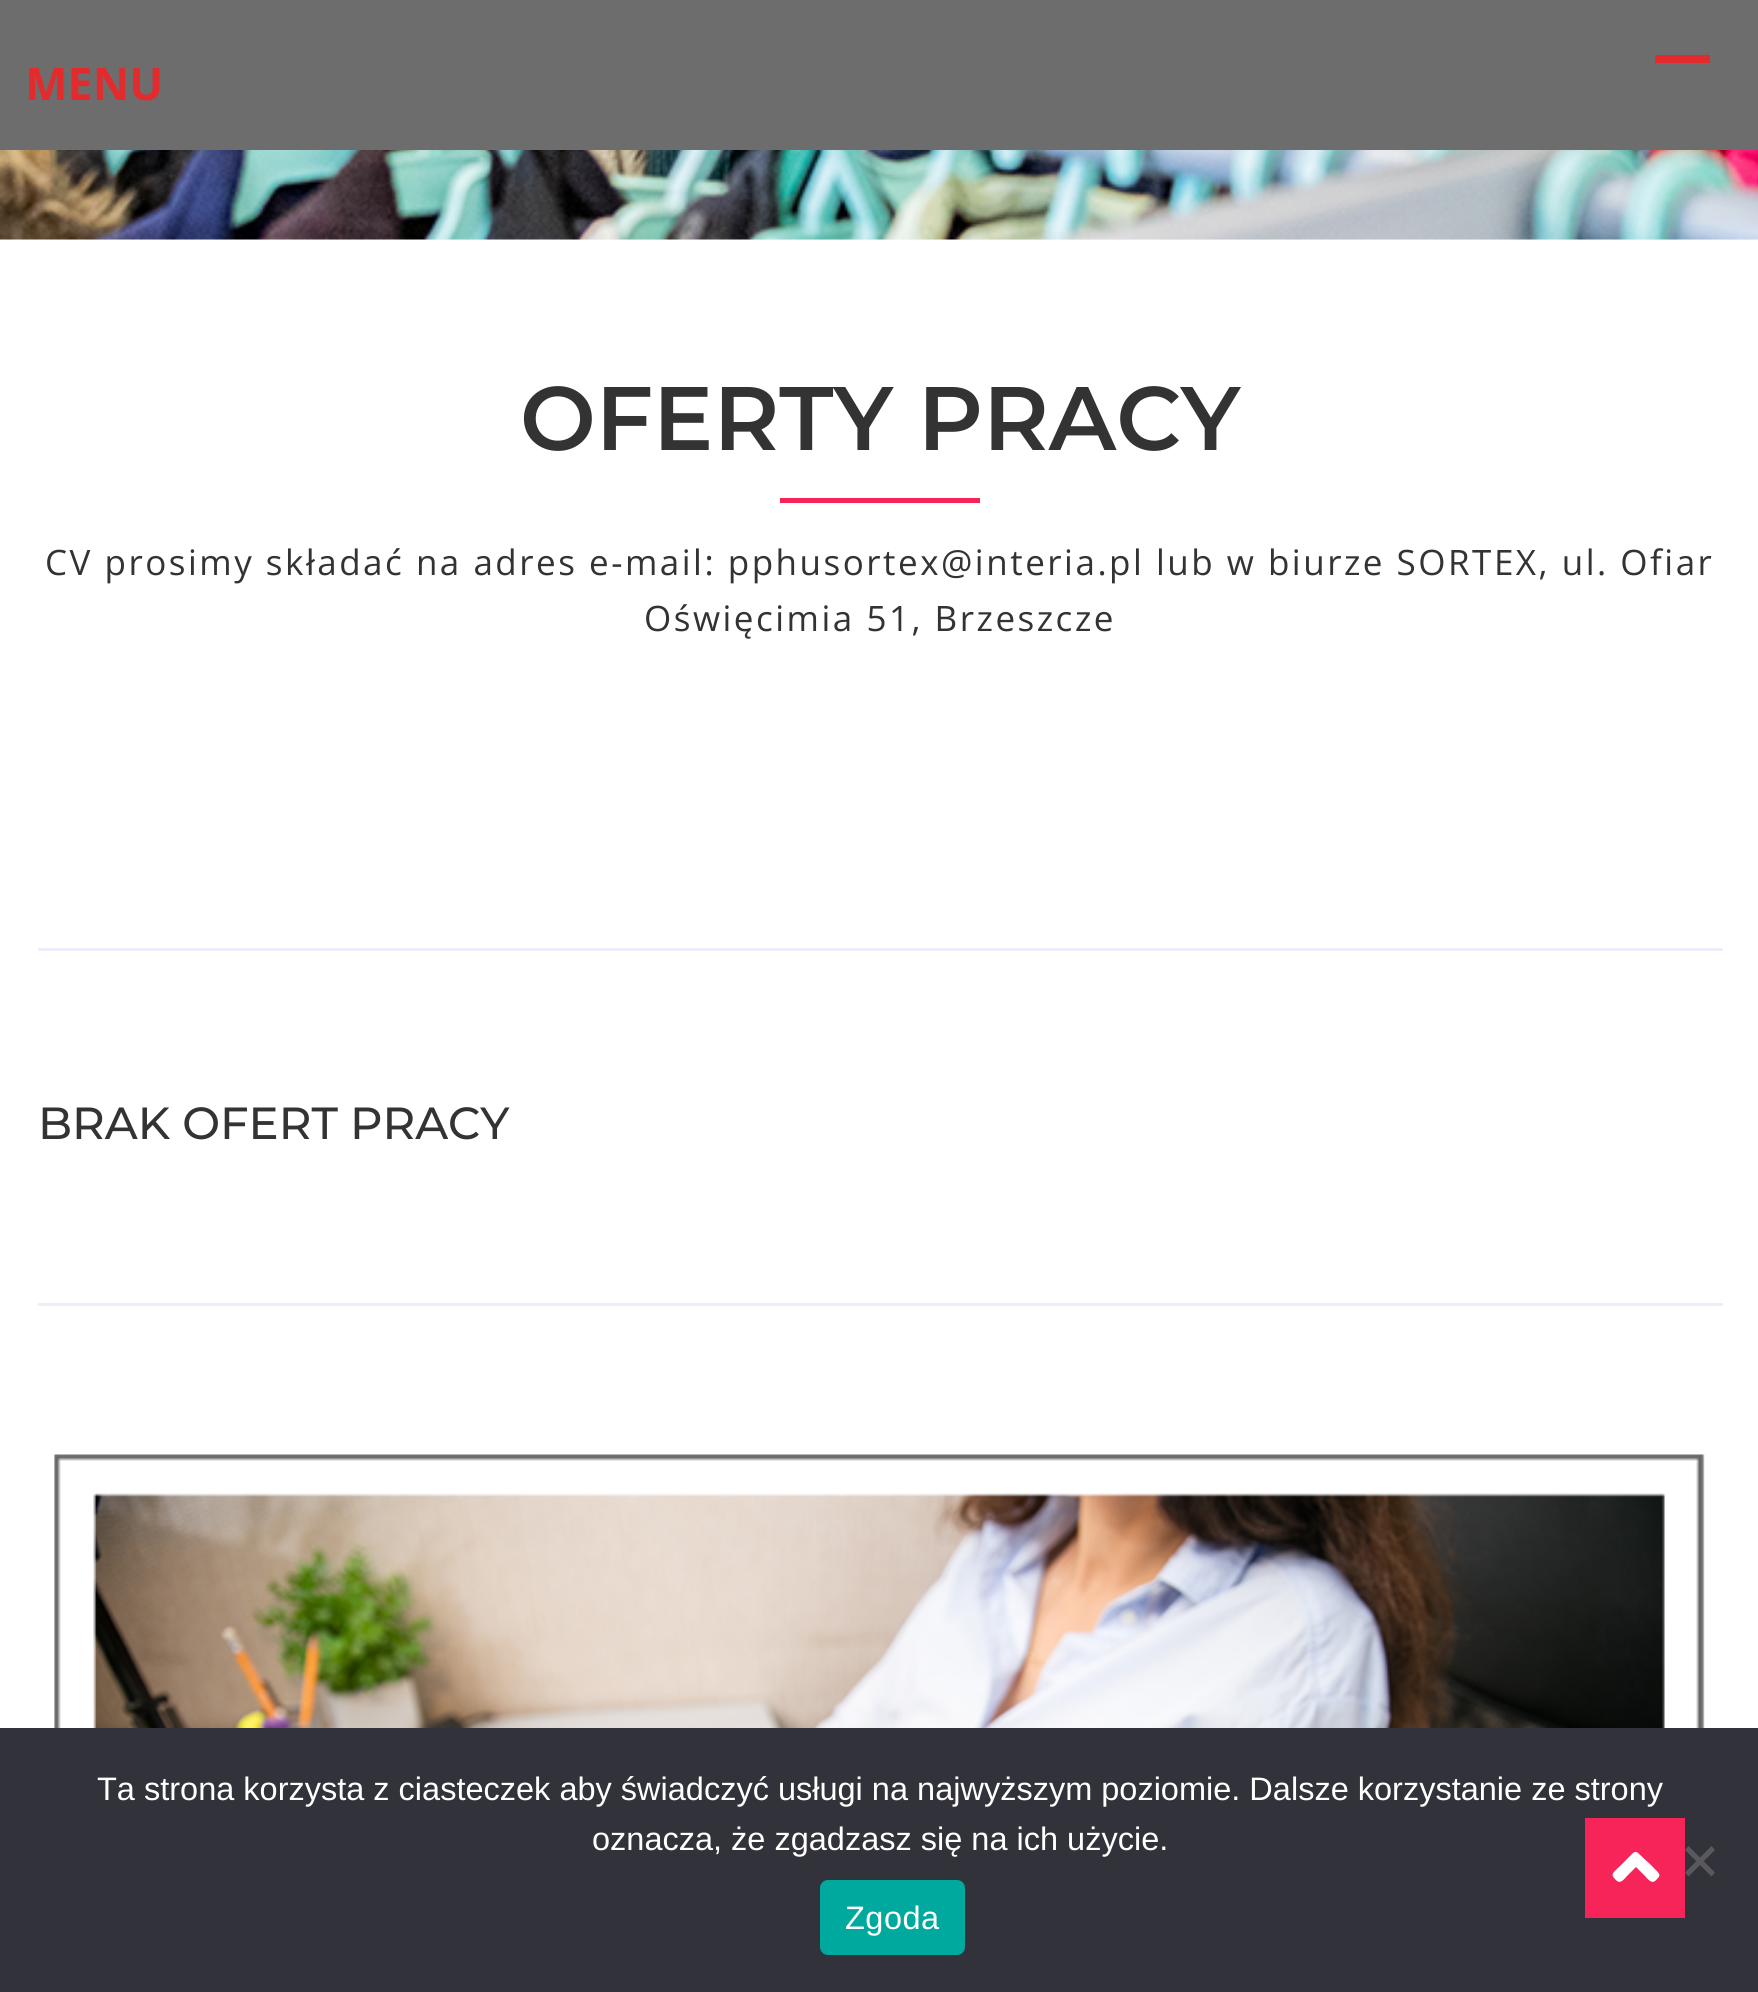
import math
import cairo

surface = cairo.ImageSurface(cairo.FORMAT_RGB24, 1758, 1992)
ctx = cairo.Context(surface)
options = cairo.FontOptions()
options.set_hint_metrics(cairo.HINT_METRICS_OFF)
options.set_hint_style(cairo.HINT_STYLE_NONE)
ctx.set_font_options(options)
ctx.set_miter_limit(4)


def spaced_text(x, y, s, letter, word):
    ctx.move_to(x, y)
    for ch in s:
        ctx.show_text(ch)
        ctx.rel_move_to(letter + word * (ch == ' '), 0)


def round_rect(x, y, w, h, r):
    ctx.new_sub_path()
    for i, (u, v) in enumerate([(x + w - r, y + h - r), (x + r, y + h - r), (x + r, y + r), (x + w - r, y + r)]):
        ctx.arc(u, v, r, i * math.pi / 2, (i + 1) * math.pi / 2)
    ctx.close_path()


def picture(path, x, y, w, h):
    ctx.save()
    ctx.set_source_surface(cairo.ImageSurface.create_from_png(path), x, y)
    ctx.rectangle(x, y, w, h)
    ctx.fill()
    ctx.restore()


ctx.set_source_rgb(1, 1, 1)
ctx.paint()
ctx.set_source_rgb(0.427, 0.427, 0.427)
ctx.rectangle(0, 0, 1758, 150)
ctx.fill()
ctx.set_source_rgb(0.89, 0.165, 0.173)
ctx.rectangle(1655, 55, 55, 8)
ctx.fill()
ctx.select_font_face("Open Sans", cairo.FONT_SLANT_NORMAL, cairo.FONT_WEIGHT_BOLD)
ctx.set_font_size(45)
ctx.move_to(25, 100)
ctx.show_text("MENU")
ctx.set_source_rgb(0.969, 0.969, 0.969)
ctx.rectangle(0, 239, 1758, 1)
ctx.fill()
picture("img1.png", 0, 150, 1758, 90)
ctx.select_font_face("Montserrat SemiBold")
ctx.set_font_size(90)
ctx.set_source_rgb(0.2, 0.2, 0.2)
ctx.move_to(520, 450)
ctx.show_text("OFERTY PRACY")
ctx.set_source_rgb(0.965, 0.141, 0.349)
ctx.rectangle(780, 498, 200, 5)
ctx.fill()
ctx.select_font_face("Open Sans")
ctx.set_font_size(35)
ctx.set_source_rgb(0.2, 0.2, 0.2)
spaced_text(45, 575, "CV prosimy składać na adres e-mail: pphusortex@interia.pl lub w biurze SORTEX, ul. Ofiar", 2.5, 0)
spaced_text(644, 631, "Oświęcimia 51, Brzeszcze", 2.5, 0)
ctx.set_source_rgb(0.925, 0.937, 0.973)
ctx.rectangle(38, 948, 1685, 3)
ctx.fill()
ctx.select_font_face("Montserrat Medium")
ctx.set_font_size(45)
ctx.set_source_rgb(0.2, 0.2, 0.2)
ctx.move_to(38, 1139)
ctx.show_text("BRAK OFERT PRACY")
ctx.set_source_rgb(0.925, 0.937, 0.973)
ctx.rectangle(38, 1303, 1685, 3)
ctx.fill()
picture("img2.png", 54, 1454, 1651, 274)
ctx.set_source_rgb(0.196, 0.196, 0.227)
ctx.rectangle(0, 1728, 1758, 264)
ctx.fill()
ctx.select_font_face("Liberation Sans")
ctx.set_font_size(32.5)
ctx.set_source_rgb(1, 1, 1)
ctx.move_to(97, 1800)
ctx.show_text("Ta strona korzysta z ciasteczek aby świadczyć usługi na najwyższym poziomie. Dalsze korzystanie ze strony")
ctx.move_to(592, 1850)
ctx.show_text("oznacza, że zgadzasz się na ich użycie.")
ctx.set_source_rgb(0.349, 0.349, 0.365)
ctx.new_path()
ctx.move_to(1711.5, 1846)
ctx.line_to(1715, 1850)
ctx.line_to(1688.5, 1876.5)
ctx.line_to(1685, 1872.5)
ctx.close_path()
ctx.fill()
ctx.new_path()
ctx.move_to(1685, 1850)
ctx.line_to(1688.5, 1846)
ctx.line_to(1715, 1872.5)
ctx.line_to(1711.5, 1876.5)
ctx.close_path()
ctx.fill()
ctx.set_source_rgb(0, 0.663, 0.616)
round_rect(820, 1880, 145, 75, 8)
ctx.fill()
ctx.set_source_rgb(1, 1, 1)
spaced_text(845, 1929, "Zgoda", 0.5, 0)
ctx.set_source_rgb(0.965, 0.141, 0.349)
ctx.rectangle(1585, 1818, 100, 100)
ctx.fill()
ctx.set_source_rgb(1, 1, 1)
ctx.new_path()
ctx.move_to(1638, 1853)
ctx.line_to(1652, 1866)
ctx.curve_to(1659, 1874, 1663, 1874, 1655, 1881)
ctx.curve_to(1651, 1884, 1647, 1878, 1645, 1876)
ctx.line_to(1636, 1867)
ctx.line_to(1627, 1876)
ctx.curve_to(1625, 1878, 1621, 1884, 1617, 1881)
ctx.curve_to(1609, 1874, 1613, 1873, 1620, 1866)
ctx.line_to(1630, 1856)
ctx.curve_to(1632, 1854, 1635, 1850, 1638, 1853)
ctx.close_path()
ctx.fill()
surface.write_to_png("page.png")
